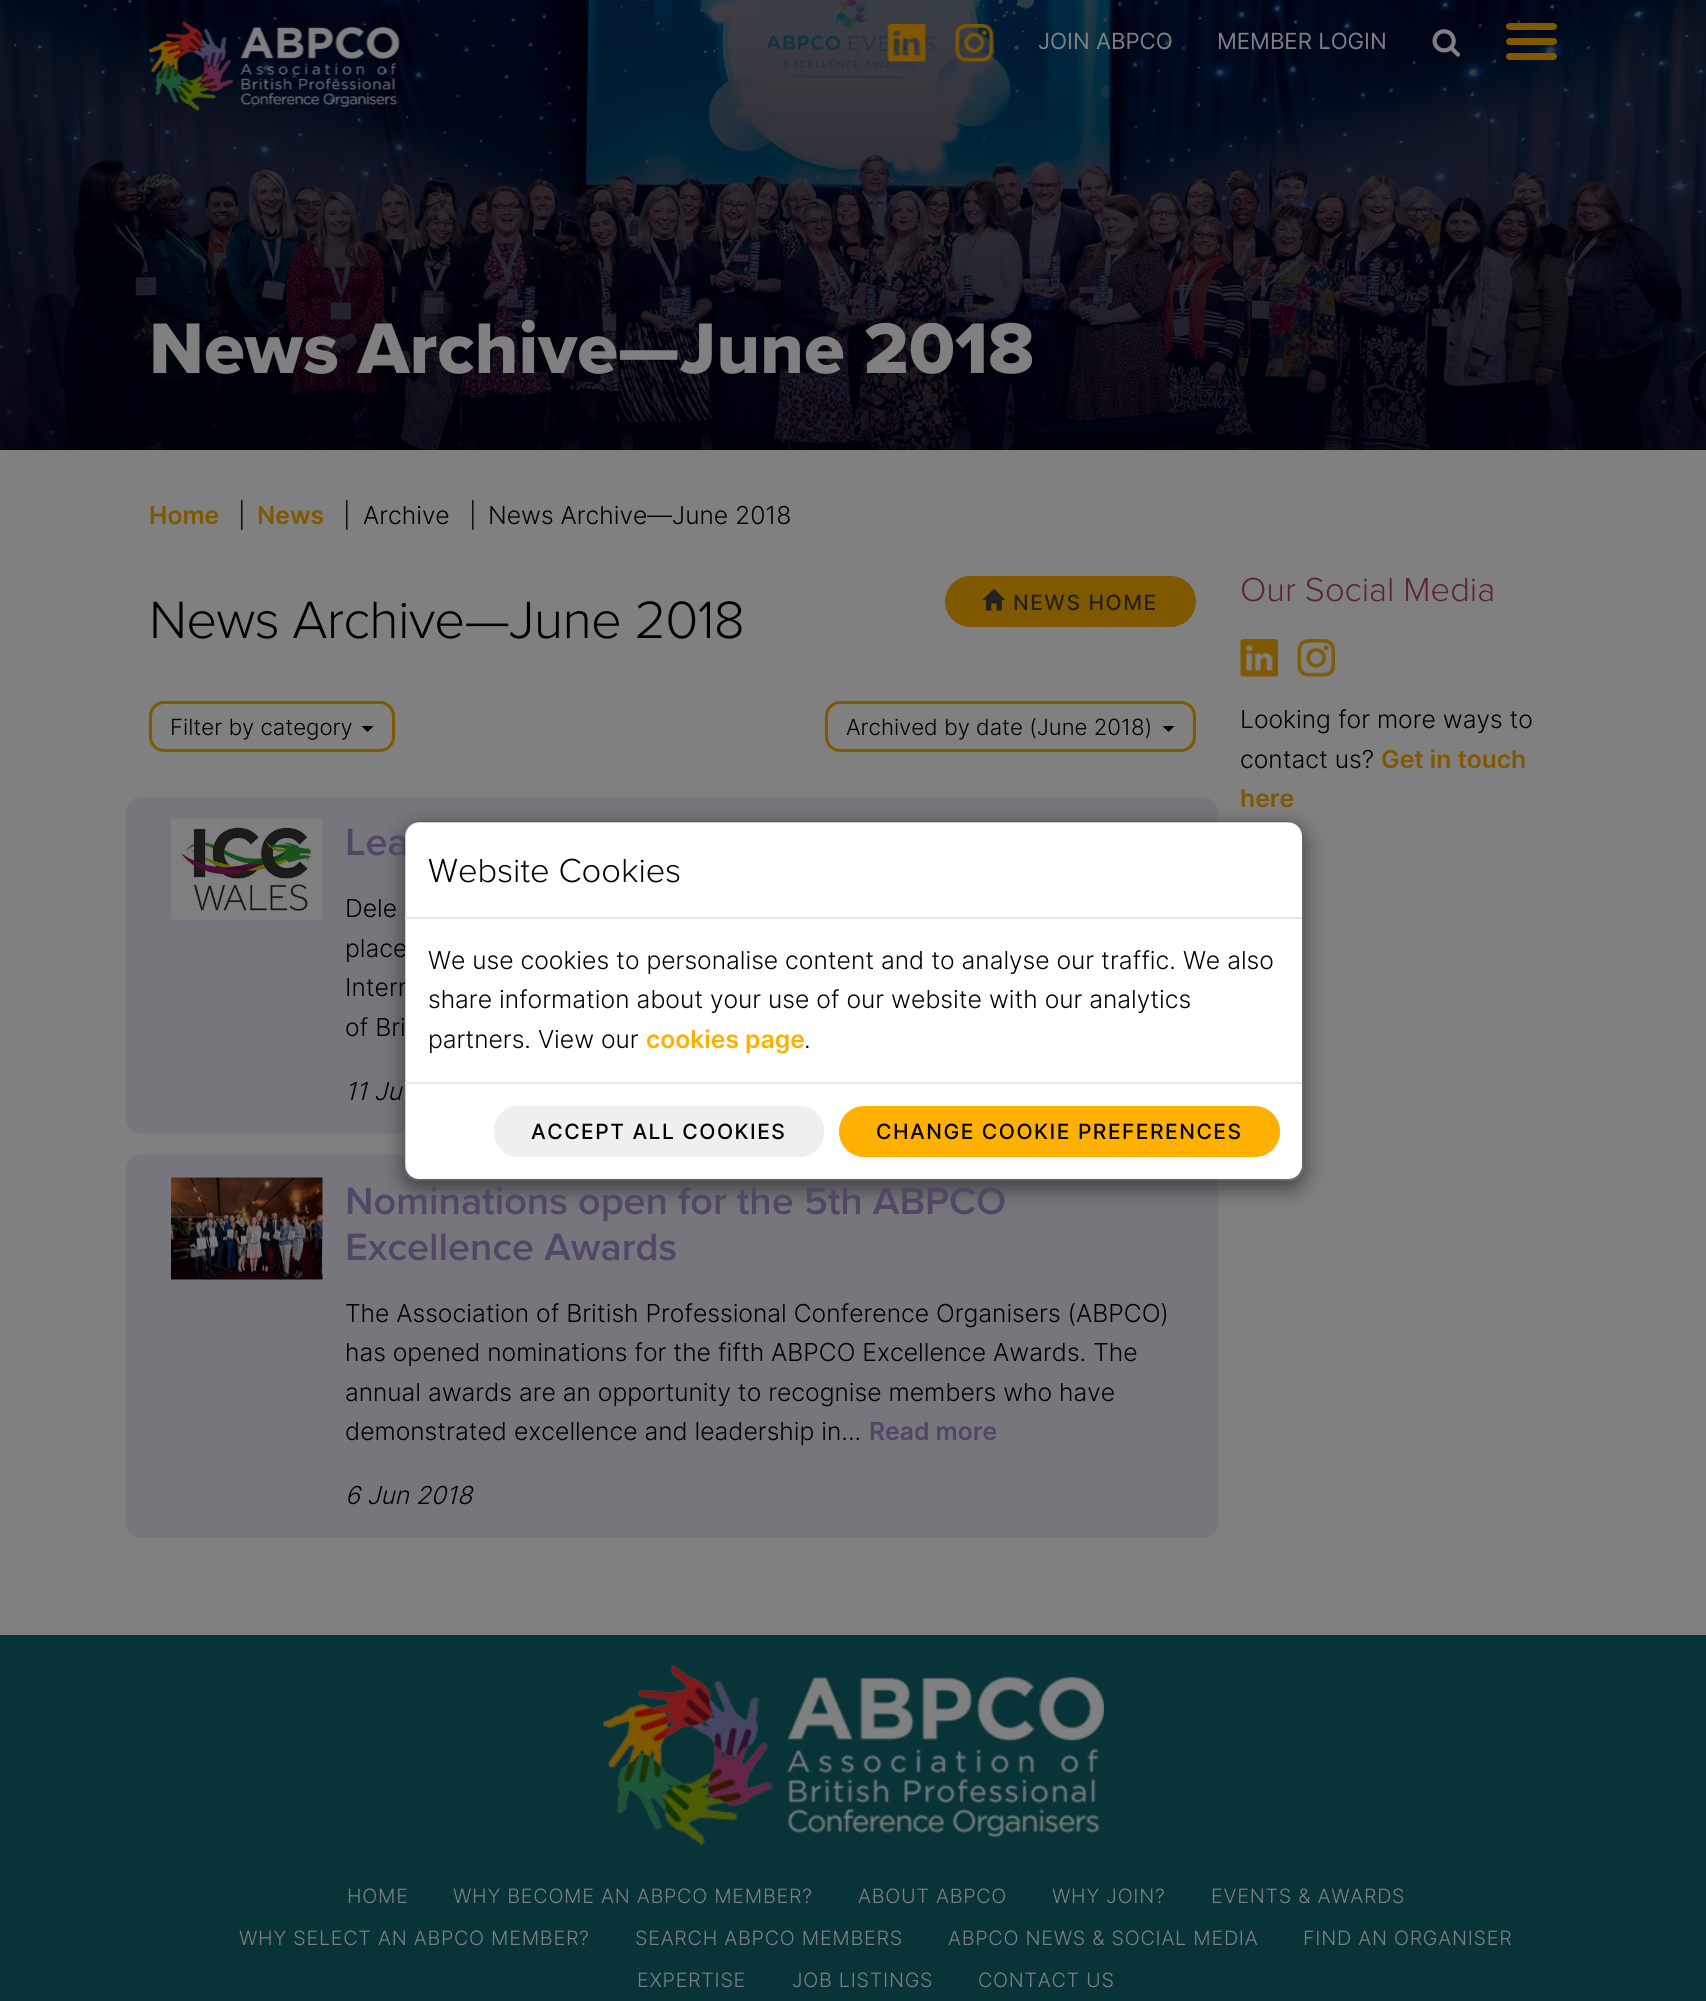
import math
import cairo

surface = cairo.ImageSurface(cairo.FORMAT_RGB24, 1706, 2001)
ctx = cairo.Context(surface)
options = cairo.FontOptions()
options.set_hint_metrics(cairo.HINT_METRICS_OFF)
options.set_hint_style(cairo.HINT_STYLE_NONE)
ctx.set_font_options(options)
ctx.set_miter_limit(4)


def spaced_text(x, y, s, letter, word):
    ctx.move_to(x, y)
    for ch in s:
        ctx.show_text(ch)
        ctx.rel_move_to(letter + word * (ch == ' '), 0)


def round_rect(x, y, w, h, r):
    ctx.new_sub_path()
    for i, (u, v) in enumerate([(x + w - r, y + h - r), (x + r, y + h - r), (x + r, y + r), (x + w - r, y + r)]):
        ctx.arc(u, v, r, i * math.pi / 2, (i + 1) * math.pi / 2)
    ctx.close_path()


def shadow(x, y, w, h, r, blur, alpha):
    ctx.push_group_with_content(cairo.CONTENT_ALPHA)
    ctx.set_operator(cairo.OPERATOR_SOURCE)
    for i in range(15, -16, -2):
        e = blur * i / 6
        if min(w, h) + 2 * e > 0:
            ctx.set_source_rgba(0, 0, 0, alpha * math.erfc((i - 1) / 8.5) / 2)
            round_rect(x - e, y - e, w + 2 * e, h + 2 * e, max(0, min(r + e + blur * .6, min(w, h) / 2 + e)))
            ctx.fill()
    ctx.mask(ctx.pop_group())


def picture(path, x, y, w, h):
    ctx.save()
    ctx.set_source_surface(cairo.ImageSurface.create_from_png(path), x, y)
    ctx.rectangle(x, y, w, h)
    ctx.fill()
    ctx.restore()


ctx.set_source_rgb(0.502, 0.502, 0.502)
ctx.paint()
picture("img5.png", 0, 0, 1706, 450)
picture("img1.png", 149, 21, 251, 90)
picture("img2.png", 887, 24, 39, 38)
picture("img3.png", 955, 24, 39, 38)
ctx.select_font_face("Inter")
ctx.set_font_size(22.25)
ctx.set_source_rgb(0.502, 0.502, 0.502)
ctx.move_to(1038, 49)
ctx.show_text("JOIN ABPCO")
ctx.move_to(1217, 49)
ctx.show_text("MEMBER LOGIN")
picture("img4.png", 1432, 29, 28, 28)
ctx.set_source_rgb(0.502, 0.345, 0)
round_rect(1506, 23, 51, 7, 3.5)
ctx.fill()
round_rect(1506, 38, 51, 7, 3.5)
ctx.fill()
round_rect(1506, 53, 51, 7, 3.5)
ctx.fill()
ctx.set_source_rgb(0.467, 0.463, 0.486)
round_rect(126, 797, 1092, 336, 15)
ctx.fill()
round_rect(126, 1155, 1092, 383, 15)
ctx.fill()
ctx.save()
ctx.set_fill_rule(cairo.FILL_RULE_EVEN_ODD)
ctx.new_path()
ctx.move_to(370, 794)
ctx.line_to(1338, 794)
ctx.line_to(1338, 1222)
ctx.line_to(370, 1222)
ctx.close_path()
ctx.move_to(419, 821)
ctx.line_to(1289, 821)
ctx.curve_to(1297.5, 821, 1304, 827.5, 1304, 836)
ctx.line_to(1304, 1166)
ctx.curve_to(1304, 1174.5, 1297.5, 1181, 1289, 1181)
ctx.line_to(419, 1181)
ctx.curve_to(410.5, 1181, 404, 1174.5, 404, 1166)
ctx.line_to(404, 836)
ctx.curve_to(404, 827.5, 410.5, 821, 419, 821)
ctx.close_path()
ctx.clip()
ctx.set_source_rgb(0, 0, 0)
shadow(404, 828, 900, 360, 15, 11, 0.5)
ctx.restore()
ctx.select_font_face("Proxima Nova SemiBold")
ctx.set_font_size(39.5)
ctx.set_source_rgb(0.318, 0.278, 0.396)
ctx.move_to(345, 855)
ctx.show_text("Lea")
ctx.select_font_face("Inter Light")
ctx.set_font_size(24.7)
ctx.set_source_rgb(0, 0, 0)
ctx.move_to(345, 957)
ctx.show_text("place")
ctx.move_to(345, 996)
ctx.show_text("Intern")
ctx.set_source_rgb(1, 1, 1)
round_rect(405, 822, 897, 357, 14)
ctx.fill()
ctx.set_source_rgb(0, 0, 0)
ctx.move_to(345, 1036)
ctx.show_text("of Bri")
round_rect(405, 822, 898, 358, 14)
ctx.set_source_rgba(0, 0, 0, 0.2)
ctx.stroke()
ctx.set_source_rgb(0.898, 0.898, 0.898)
ctx.rectangle(405, 917, 897, 2)
ctx.fill()
ctx.select_font_face("Proxima Nova Light")
ctx.set_font_size(34.5)
ctx.set_source_rgb(0, 0, 0)
ctx.move_to(428, 882)
ctx.show_text("Website Cookies")
ctx.select_font_face("Inter Light")
ctx.set_font_size(24.7)
ctx.move_to(428, 969)
ctx.show_text("We use cookies to personalise content and to analyse our traffic. We also")
ctx.move_to(428, 1008)
ctx.show_text("share information about your use of our website with our analytics")
ctx.move_to(428, 1048)
ctx.show_text("partners. View our")
ctx.select_font_face("Inter SemiBold")
ctx.set_source_rgb(1, 0.69, 0)
ctx.move_to(646, 1048)
ctx.show_text("cookies page")
ctx.select_font_face("Inter Light")
ctx.set_source_rgb(0, 0, 0)
ctx.move_to(804, 1048)
ctx.show_text(".")
ctx.set_source_rgb(0.898, 0.898, 0.898)
ctx.rectangle(405, 1082, 897, 2)
ctx.fill()
ctx.set_source_rgb(0.937, 0.937, 0.937)
round_rect(494, 1106, 330, 51, 24)
ctx.fill()
ctx.select_font_face("Inter Medium")
ctx.set_font_size(21)
ctx.set_source_rgb(0, 0, 0)
spaced_text(531, 1139, "ACCEPT ALL COOKIES", 1.5, 0)
ctx.set_source_rgb(0.937, 0.937, 0.937)
round_rect(839, 1106, 441, 51, 24)
ctx.fill()
ctx.set_source_rgb(1, 0.69, 0)
round_rect(839, 1106, 441, 51, 25.5)
ctx.fill()
ctx.set_source_rgb(0, 0, 0)
spaced_text(876, 1139, "CHANGE COOKIE PREFERENCES", 1.5, 0)
ctx.select_font_face("Proxima Nova ExtraBold")
ctx.set_font_size(74.2)
ctx.set_source_rgb(0.502, 0.502, 0.502)
ctx.move_to(149, 373)
ctx.show_text("News Archive—June 2018")
ctx.select_font_face("Inter SemiBold")
ctx.set_font_size(24.7)
ctx.set_source_rgb(0.502, 0.345, 0)
ctx.move_to(149, 524)
ctx.show_text("Home")
ctx.select_font_face("Inter Light")
ctx.set_source_rgb(0, 0, 0)
ctx.move_to(238, 524)
ctx.show_text("|")
ctx.select_font_face("Inter SemiBold")
ctx.set_source_rgb(0.502, 0.345, 0)
ctx.move_to(257, 524)
ctx.show_text("News")
ctx.select_font_face("Inter Light")
ctx.set_source_rgb(0, 0, 0)
ctx.move_to(343, 524)
ctx.show_text("|")
ctx.move_to(363, 524)
ctx.show_text("Archive")
ctx.move_to(469, 524)
ctx.show_text("|")
ctx.move_to(488, 524)
ctx.show_text("News Archive—June 2018")
ctx.select_font_face("Proxima Nova Light")
ctx.set_font_size(54.4)
spaced_text(149, 638, "News Archive—June 2018", -0.75, 0)
ctx.set_source_rgb(0.502, 0.345, 0)
round_rect(945, 576, 251, 51, 25.5)
ctx.fill()
picture("img6.png", 982, 589, 23, 22)
ctx.select_font_face("Inter Medium")
ctx.set_font_size(21)
ctx.set_source_rgb(0.133, 0.133, 0.133)
spaced_text(1013, 610, "NEWS HOME", 1.5, 0)
round_rect(150.5, 702.5, 243, 48, 13.5)
ctx.set_source_rgb(0.502, 0.345, 0)
ctx.set_line_width(3)
ctx.stroke()
ctx.select_font_face("Inter Light")
ctx.set_font_size(22.25)
ctx.set_source_rgb(0, 0, 0)
ctx.move_to(170, 735)
ctx.show_text("Filter by category")
ctx.new_path()
ctx.move_to(361.5, 726)
ctx.line_to(373.5, 726)
ctx.line_to(367.5, 732)
ctx.close_path()
ctx.fill()
round_rect(826.5, 702.5, 368, 48, 13.5)
ctx.set_source_rgb(0.502, 0.345, 0)
ctx.stroke()
ctx.set_source_rgb(0, 0, 0)
ctx.move_to(846, 735)
ctx.show_text("Archived by date (June 2018)")
ctx.new_path()
ctx.move_to(1162.5, 726)
ctx.line_to(1174.5, 726)
ctx.line_to(1168.5, 732)
ctx.close_path()
ctx.fill()
picture("img7.png", 171, 819, 152, 101)
ctx.set_font_size(24.7)
ctx.move_to(345, 917)
ctx.show_text("Dele")
ctx.select_font_face("Inter Light", cairo.FONT_SLANT_ITALIC)
ctx.move_to(345, 1100)
ctx.show_text("11 Ju")
picture("img8.png", 171, 1177, 152, 103)
ctx.select_font_face("Proxima Nova SemiBold")
ctx.set_font_size(39.5)
ctx.set_source_rgb(0.318, 0.278, 0.396)
ctx.move_to(345, 1214)
ctx.show_text("Nominations open for the 5th ABPCO")
ctx.move_to(345, 1260)
ctx.show_text("Excellence Awards")
ctx.select_font_face("Inter Light")
ctx.set_font_size(24.7)
ctx.set_source_rgb(0, 0, 0)
ctx.move_to(345, 1322)
ctx.show_text("The Association of British Professional Conference Organisers (ABPCO)")
ctx.move_to(345, 1361)
ctx.show_text("has opened nominations for the fifth ABPCO Excellence Awards. The")
ctx.move_to(345, 1401)
ctx.show_text("annual awards are an opportunity to recognise members who have")
ctx.move_to(345, 1440)
ctx.show_text("demonstrated excellence and leadership in...")
ctx.select_font_face("Inter SemiBold")
ctx.set_source_rgb(0.318, 0.278, 0.396)
ctx.move_to(869, 1440)
ctx.show_text("Read more")
ctx.select_font_face("Inter Light", cairo.FONT_SLANT_ITALIC)
ctx.set_source_rgb(0, 0, 0)
ctx.move_to(345, 1504)
ctx.show_text("6 Jun 2018")
ctx.select_font_face("Proxima Nova Light")
ctx.set_font_size(34.5)
ctx.set_source_rgb(0.361, 0.125, 0.239)
ctx.move_to(1240, 601)
ctx.show_text("Our Social Media")
picture("img9.png", 1240, 639, 38, 38)
picture("img10.png", 1297, 639, 38, 38)
ctx.select_font_face("Inter Light")
ctx.set_font_size(24.7)
ctx.set_source_rgb(0, 0, 0)
ctx.move_to(1240, 728)
ctx.show_text("Looking for more ways to")
ctx.move_to(1240, 768)
ctx.show_text("contact us?")
ctx.select_font_face("Inter SemiBold")
ctx.set_source_rgb(0.502, 0.345, 0)
ctx.move_to(1381, 768)
ctx.show_text("Get in touch")
ctx.move_to(1240, 807)
ctx.show_text("here")
ctx.set_source_rgb(0.035, 0.204, 0.216)
ctx.rectangle(0, 1635, 1706, 366)
ctx.fill()
picture("img11.png", 603, 1665, 501, 180)
ctx.select_font_face("Inter Light")
ctx.set_font_size(19.75)
ctx.set_source_rgb(0.502, 0.502, 0.502)
spaced_text(347, 1903, "HOME", 0.75, 0)
spaced_text(453, 1903, "WHY BECOME AN ABPCO MEMBER?", 0.75, 0)
spaced_text(858, 1903, "ABOUT ABPCO", 0.75, 0)
spaced_text(1052, 1903, "WHY JOIN?", 0.75, 0)
spaced_text(1211, 1903, "EVENTS & AWARDS", 0.75, 0)
spaced_text(239, 1945, "WHY SELECT AN ABPCO MEMBER?", 0.75, 0)
spaced_text(635, 1945, "SEARCH ABPCO MEMBERS", 0.75, 0)
spaced_text(948, 1945, "ABPCO NEWS & SOCIAL MEDIA", 0.75, 0)
spaced_text(1303, 1945, "FIND AN ORGANISER", 0.75, 0)
spaced_text(637, 1987, "EXPERTISE", 0.75, 0)
spaced_text(792, 1987, "JOB LISTINGS", 0.75, 0)
spaced_text(978, 1987, "CONTACT US", 0.75, 0)
surface.write_to_png("page.png")
